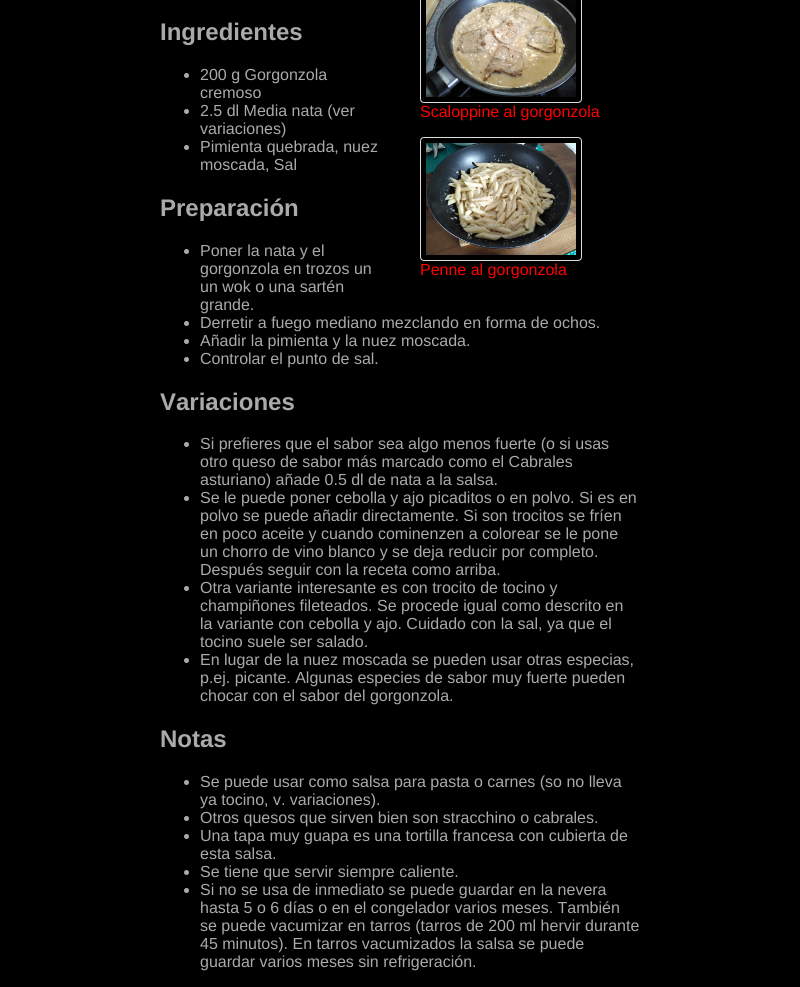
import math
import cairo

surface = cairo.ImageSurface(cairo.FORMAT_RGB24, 800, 987)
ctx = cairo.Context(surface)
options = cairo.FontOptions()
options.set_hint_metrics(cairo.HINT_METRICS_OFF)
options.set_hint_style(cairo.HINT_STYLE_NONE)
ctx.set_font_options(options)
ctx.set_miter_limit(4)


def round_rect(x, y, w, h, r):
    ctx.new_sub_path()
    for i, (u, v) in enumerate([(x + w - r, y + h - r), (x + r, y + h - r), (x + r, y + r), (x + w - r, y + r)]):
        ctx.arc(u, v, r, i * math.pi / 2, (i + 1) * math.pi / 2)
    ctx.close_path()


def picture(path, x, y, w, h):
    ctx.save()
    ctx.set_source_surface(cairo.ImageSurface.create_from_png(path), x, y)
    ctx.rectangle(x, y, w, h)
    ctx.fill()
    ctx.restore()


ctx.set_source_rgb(0, 0, 0)
ctx.paint()
ctx.select_font_face("Liberation Sans", cairo.FONT_SLANT_NORMAL, cairo.FONT_WEIGHT_BOLD)
ctx.set_font_size(24)
ctx.set_source_rgb(0.667, 0.667, 0.667)
ctx.move_to(160, 40)
ctx.show_text("Ingredientes")
ctx.new_path()
ctx.arc(186.5, 75.5, 2.5, 0, 2 * math.pi)
ctx.fill()
ctx.select_font_face("Liberation Sans")
ctx.set_font_size(16)
ctx.move_to(200, 80)
ctx.show_text("200 g Gorgonzola")
ctx.move_to(200, 98)
ctx.show_text("cremoso")
ctx.new_path()
ctx.arc(186.5, 111.5, 2.5, 0, 2 * math.pi)
ctx.fill()
ctx.move_to(200, 116)
ctx.show_text("2.5 dl Media nata (ver")
ctx.move_to(200, 134)
ctx.show_text("variaciones)")
ctx.new_path()
ctx.arc(186.5, 147.5, 2.5, 0, 2 * math.pi)
ctx.fill()
ctx.move_to(200, 152)
ctx.show_text("Pimienta quebrada, nuez")
ctx.move_to(200, 170)
ctx.show_text("moscada, Sal")
round_rect(420.5, -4.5, 161, 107, 3.5)
ctx.set_source_rgb(0.867, 0.867, 0.867)
ctx.set_line_width(1)
ctx.stroke()
picture("img1.png", 426, 0, 150, 97)
ctx.set_source_rgb(1, 0, 0)
ctx.move_to(420, 117)
ctx.show_text("Scaloppine al gorgonzola")
round_rect(420.5, 137.5, 161, 123, 3.5)
ctx.set_source_rgb(0.867, 0.867, 0.867)
ctx.stroke()
picture("img2.png", 426, 143, 150, 112)
ctx.set_source_rgb(1, 0, 0)
ctx.move_to(420, 275)
ctx.show_text("Penne al gorgonzola")
ctx.select_font_face("Liberation Sans", cairo.FONT_SLANT_NORMAL, cairo.FONT_WEIGHT_BOLD)
ctx.set_font_size(24)
ctx.set_source_rgb(0.667, 0.667, 0.667)
ctx.move_to(160, 216)
ctx.show_text("Preparación")
ctx.new_path()
ctx.arc(186.5, 251.5, 2.5, 0, 2 * math.pi)
ctx.fill()
ctx.select_font_face("Liberation Sans")
ctx.set_font_size(16)
ctx.move_to(200, 256)
ctx.show_text("Poner la nata y el")
ctx.move_to(200, 274)
ctx.show_text("gorgonzola en trozos un")
ctx.move_to(200, 292)
ctx.show_text("un wok o una sartén")
ctx.move_to(200, 310)
ctx.show_text("grande.")
ctx.new_path()
ctx.arc(186.5, 323.5, 2.5, 0, 2 * math.pi)
ctx.fill()
ctx.move_to(200, 328)
ctx.show_text("Derretir a fuego mediano mezclando en forma de ochos.")
ctx.new_path()
ctx.arc(186.5, 341.5, 2.5, 0, 2 * math.pi)
ctx.fill()
ctx.move_to(200, 346)
ctx.show_text("Añadir la pimienta y la nuez moscada.")
ctx.new_path()
ctx.arc(186.5, 359.5, 2.5, 0, 2 * math.pi)
ctx.fill()
ctx.move_to(200, 364)
ctx.show_text("Controlar el punto de sal.")
ctx.select_font_face("Liberation Sans", cairo.FONT_SLANT_NORMAL, cairo.FONT_WEIGHT_BOLD)
ctx.set_font_size(24)
ctx.move_to(160, 410)
ctx.show_text("Variaciones")
ctx.new_path()
ctx.arc(186.5, 444.5, 2.5, 0, 2 * math.pi)
ctx.fill()
ctx.select_font_face("Liberation Sans")
ctx.set_font_size(16)
ctx.move_to(200, 449)
ctx.show_text("Si prefieres que el sabor sea algo menos fuerte (o si usas")
ctx.move_to(200, 467)
ctx.show_text("otro queso de sabor más marcado como el Cabrales")
ctx.move_to(200, 485)
ctx.show_text("asturiano) añade 0.5 dl de nata a la salsa.")
ctx.new_path()
ctx.arc(186.5, 498.5, 2.5, 0, 2 * math.pi)
ctx.fill()
ctx.move_to(200, 503)
ctx.show_text("Se le puede poner cebolla y ajo picaditos o en polvo. Si es en")
ctx.move_to(200, 521)
ctx.show_text("polvo se puede añadir directamente. Si son trocitos se fríen")
ctx.move_to(200, 539)
ctx.show_text("en poco aceite y cuando cominenzen a colorear se le pone")
ctx.move_to(200, 557)
ctx.show_text("un chorro de vino blanco y se deja reducir por completo.")
ctx.move_to(200, 575)
ctx.show_text("Después seguir con la receta como arriba.")
ctx.new_path()
ctx.arc(186.5, 588.5, 2.5, 0, 2 * math.pi)
ctx.fill()
ctx.move_to(200, 593)
ctx.show_text("Otra variante interesante es con trocito de tocino y")
ctx.move_to(200, 611)
ctx.show_text("champiñones fileteados. Se procede igual como descrito en")
ctx.move_to(200, 629)
ctx.show_text("la variante con cebolla y ajo. Cuidado con la sal, ya que el")
ctx.move_to(200, 647)
ctx.show_text("tocino suele ser salado.")
ctx.new_path()
ctx.arc(186.5, 660.5, 2.5, 0, 2 * math.pi)
ctx.fill()
ctx.move_to(200, 665)
ctx.show_text("En lugar de la nuez moscada se pueden usar otras especias,")
ctx.move_to(200, 683)
ctx.show_text("p.ej. picante. Algunas especies de sabor muy fuerte pueden")
ctx.move_to(200, 701)
ctx.show_text("chocar con el sabor del gorgonzola.")
ctx.select_font_face("Liberation Sans", cairo.FONT_SLANT_NORMAL, cairo.FONT_WEIGHT_BOLD)
ctx.set_font_size(24)
ctx.move_to(160, 747)
ctx.show_text("Notas")
ctx.new_path()
ctx.arc(186.5, 782.5, 2.5, 0, 2 * math.pi)
ctx.fill()
ctx.select_font_face("Liberation Sans")
ctx.set_font_size(16)
ctx.move_to(200, 787)
ctx.show_text("Se puede usar como salsa para pasta o carnes (so no lleva")
ctx.move_to(200, 805)
ctx.show_text("ya tocino, v. variaciones).")
ctx.new_path()
ctx.arc(186.5, 818.5, 2.5, 0, 2 * math.pi)
ctx.fill()
ctx.move_to(200, 823)
ctx.show_text("Otros quesos que sirven bien son stracchino o cabrales.")
ctx.new_path()
ctx.arc(186.5, 836.5, 2.5, 0, 2 * math.pi)
ctx.fill()
ctx.move_to(200, 841)
ctx.show_text("Una tapa muy guapa es una tortilla francesa con cubierta de")
ctx.move_to(200, 859)
ctx.show_text("esta salsa.")
ctx.new_path()
ctx.arc(186.5, 872.5, 2.5, 0, 2 * math.pi)
ctx.fill()
ctx.move_to(200, 877)
ctx.show_text("Se tiene que servir siempre caliente.")
ctx.new_path()
ctx.arc(186.5, 890.5, 2.5, 0, 2 * math.pi)
ctx.fill()
ctx.move_to(200, 895)
ctx.show_text("Si no se usa de inmediato se puede guardar en la nevera")
ctx.move_to(200, 913)
ctx.show_text("hasta 5 o 6 días o en el congelador varios meses. También")
ctx.move_to(200, 931)
ctx.show_text("se puede vacumizar en tarros (tarros de 200 ml hervir durante")
ctx.move_to(200, 949)
ctx.show_text("45 minutos). En tarros vacumizados la salsa se puede")
ctx.move_to(200, 967)
ctx.show_text("guardar varios meses sin refrigeración.")
surface.write_to_png("page.png")
